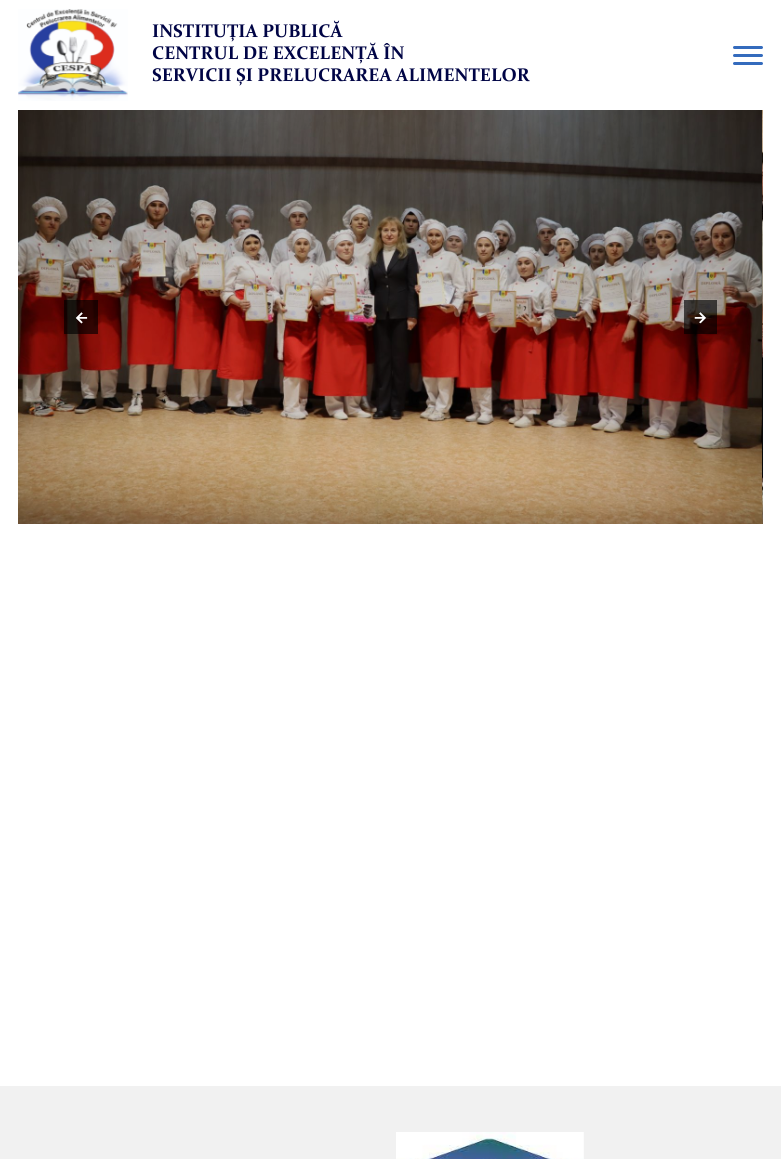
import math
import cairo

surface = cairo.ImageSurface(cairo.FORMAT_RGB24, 781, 1159)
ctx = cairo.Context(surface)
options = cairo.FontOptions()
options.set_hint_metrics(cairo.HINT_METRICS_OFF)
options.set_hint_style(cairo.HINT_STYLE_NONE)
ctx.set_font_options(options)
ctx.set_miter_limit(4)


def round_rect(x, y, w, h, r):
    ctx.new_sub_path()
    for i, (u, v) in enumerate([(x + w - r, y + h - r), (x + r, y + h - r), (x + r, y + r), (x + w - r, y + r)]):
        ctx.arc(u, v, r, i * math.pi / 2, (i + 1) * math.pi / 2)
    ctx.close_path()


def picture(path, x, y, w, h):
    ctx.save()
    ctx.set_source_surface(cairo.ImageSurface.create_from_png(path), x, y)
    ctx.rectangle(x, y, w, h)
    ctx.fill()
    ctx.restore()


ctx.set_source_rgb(1, 1, 1)
ctx.paint()
picture("img1.png", 18, 9, 110, 92)
ctx.select_font_face("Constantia", cairo.FONT_SLANT_NORMAL, cairo.FONT_WEIGHT_BOLD)
ctx.set_font_size(18.4)
ctx.set_source_rgb(0, 0.016, 0.271)
ctx.move_to(152, 37)
ctx.show_text("INSTITUŢIA PUBLICĂ")
ctx.move_to(152, 59)
ctx.show_text("CENTRUL DE EXCELENȚĂ ÎN")
ctx.move_to(152, 81)
ctx.show_text("SERVICII ȘI PRELUCRAREA ALIMENTELOR")
ctx.set_source_rgb(0.204, 0.42, 0.741)
round_rect(733, 46, 30, 3, 1.5)
ctx.fill()
round_rect(733, 54, 30, 3, 1.5)
ctx.fill()
round_rect(733, 62, 30, 3, 1.5)
ctx.fill()
picture("img2.png", 18, 110, 744, 414)
picture("img3.png", 762, 110, 1, 414)
ctx.set_source_rgba(0, 0, 0, 0.64)
ctx.rectangle(64, 300, 34, 34)
ctx.fill()
picture("img4.png", 75, 312, 13, 12)
ctx.rectangle(684, 300, 33, 34)
ctx.fill()
picture("img5.png", 694, 312, 12, 12)
ctx.set_source_rgb(0.945, 0.945, 0.945)
ctx.rectangle(0, 1086, 781, 73)
ctx.fill()
picture("img6.png", 396, 1132, 188, 27)
surface.write_to_png("page.png")
